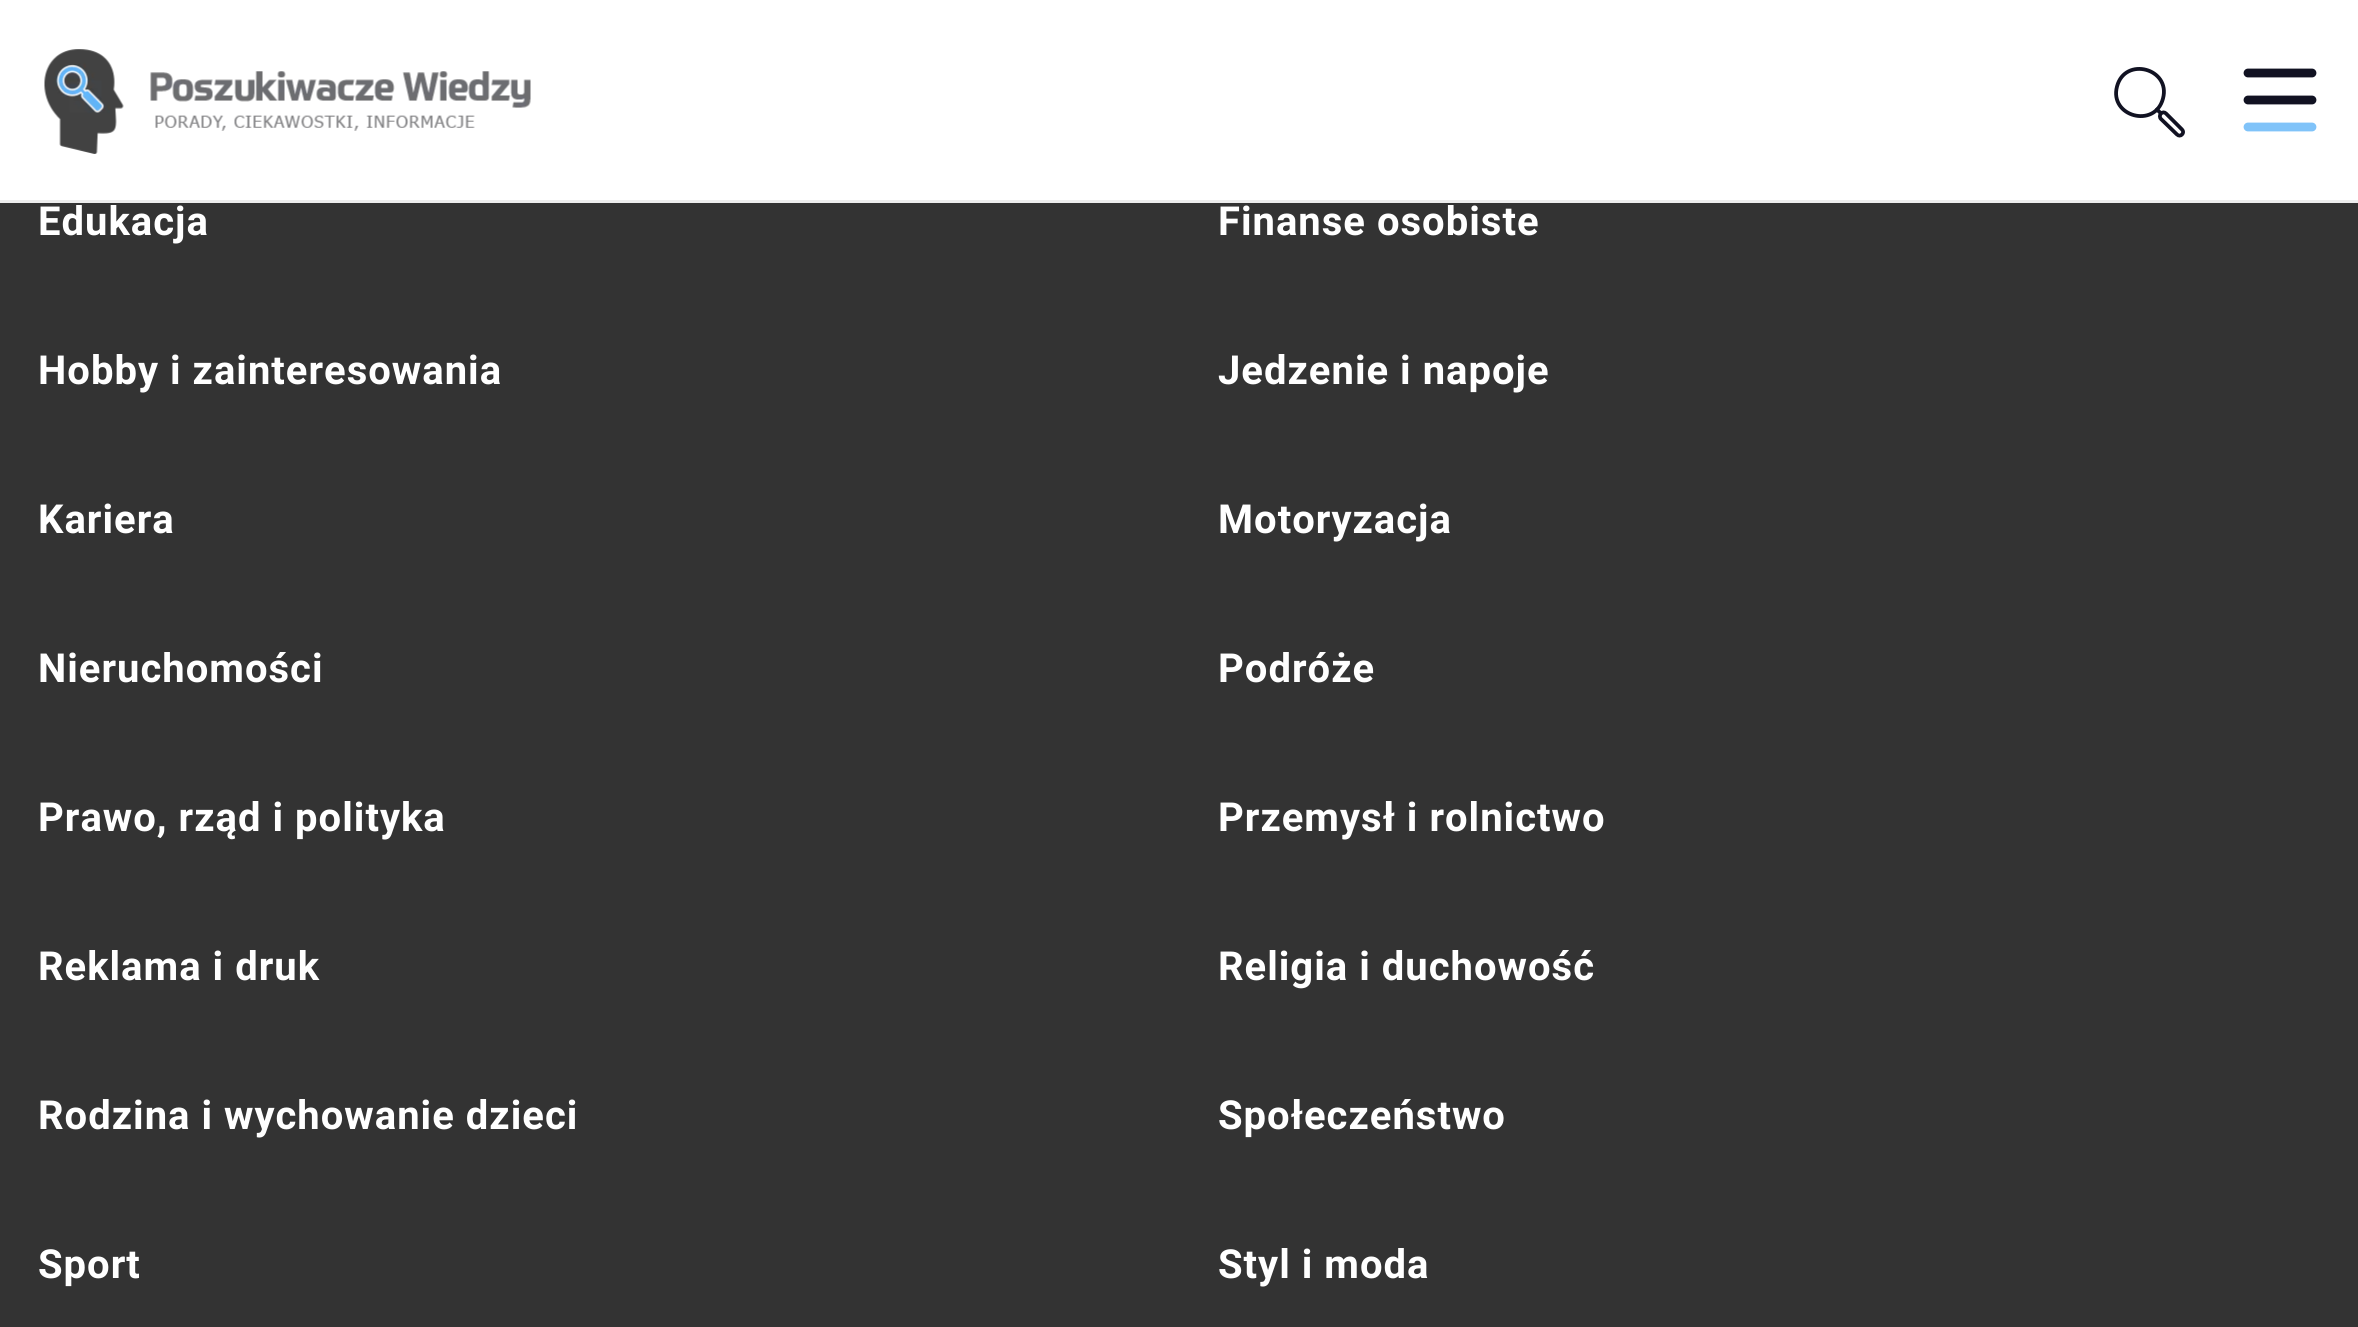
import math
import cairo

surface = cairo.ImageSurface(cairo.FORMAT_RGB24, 2358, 1327)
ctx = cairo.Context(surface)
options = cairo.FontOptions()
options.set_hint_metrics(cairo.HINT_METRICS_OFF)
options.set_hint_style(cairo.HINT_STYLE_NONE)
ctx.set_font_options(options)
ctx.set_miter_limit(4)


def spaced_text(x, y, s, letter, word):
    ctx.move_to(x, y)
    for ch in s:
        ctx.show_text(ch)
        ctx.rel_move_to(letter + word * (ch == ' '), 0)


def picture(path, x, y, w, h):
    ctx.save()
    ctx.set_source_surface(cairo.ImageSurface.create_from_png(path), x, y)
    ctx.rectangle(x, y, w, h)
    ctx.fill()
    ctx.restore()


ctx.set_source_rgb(0.2, 0.2, 0.2)
ctx.paint()
ctx.set_source_rgb(1, 1, 1)
ctx.rectangle(0, 0, 2358, 200)
ctx.fill()
ctx.set_source_rgb(0.929, 0.929, 0.929)
ctx.rectangle(0, 200, 2358, 3)
ctx.fill()
picture("img1.png", 44, 49, 487, 105)
ctx.new_path()
ctx.move_to(2157, 109.5)
ctx.line_to(2161, 113.5)
ctx.move_to(2161, 119)
ctx.line_to(2177, 134.5)
ctx.curve_to(2178.5, 136, 2180.5, 136, 2182, 134.5)
ctx.curve_to(2183.5, 133, 2183.5, 131, 2182, 129.5)
ctx.line_to(2166, 113.5)
ctx.curve_to(2164.5, 112, 2162.5, 112, 2161, 113.5)
ctx.curve_to(2159.5, 115, 2159.5, 117.5, 2161, 119)
ctx.close_path()
ctx.set_source_rgb(0.067, 0.071, 0.133)
ctx.set_line_width(3.8)
ctx.set_line_cap(cairo.LINE_CAP_ROUND)
ctx.set_line_join(cairo.LINE_JOIN_ROUND)
ctx.stroke()
ctx.new_path()
ctx.move_to(2117, 86.5)
ctx.curve_to(2125, 56, 2171, 68.5, 2163, 98.5)
ctx.curve_to(2155, 129, 2109, 116.5, 2117, 86.5)
ctx.close_path()
ctx.stroke()
ctx.new_path()
ctx.move_to(2248, 73)
ctx.line_to(2312, 73)
ctx.set_line_width(8.8)
ctx.set_line_join(cairo.LINE_JOIN_MITER)
ctx.stroke()
ctx.new_path()
ctx.move_to(2248, 100)
ctx.line_to(2312, 100)
ctx.stroke()
ctx.new_path()
ctx.move_to(2312, 127)
ctx.line_to(2248, 127)
ctx.set_source_rgb(0.502, 0.765, 0.973)
ctx.stroke()
ctx.select_font_face("Roboto", cairo.FONT_SLANT_NORMAL, cairo.FONT_WEIGHT_BOLD)
ctx.set_font_size(40)
ctx.set_source_rgb(1, 1, 1)
spaced_text(38, 235, "Edukacja", 1, 0)
spaced_text(1218, 235, "Finanse osobiste", 1, 0)
spaced_text(38, 384, "Hobby i zainteresowania", 1, 0)
spaced_text(1218, 384, "Jedzenie i napoje", 1, 0)
spaced_text(38, 533, "Kariera", 1, 0)
spaced_text(1218, 533, "Motoryzacja", 1, 0)
spaced_text(38, 682, "Nieruchomości", 1, 0)
spaced_text(1218, 682, "Podróże", 1, 0)
spaced_text(38, 831, "Prawo, rząd i polityka", 1, 0)
spaced_text(1218, 831, "Przemysł i rolnictwo", 1, 0)
spaced_text(38, 980, "Reklama i druk", 1, 0)
spaced_text(1218, 980, "Religia i duchowość", 1, 0)
spaced_text(38, 1129, "Rodzina i wychowanie dzieci", 1, 0)
spaced_text(1218, 1129, "Społeczeństwo", 1, 0)
spaced_text(38, 1278, "Sport", 1, 0)
spaced_text(1218, 1278, "Styl i moda", 1, 0)
surface.write_to_png("page.png")
